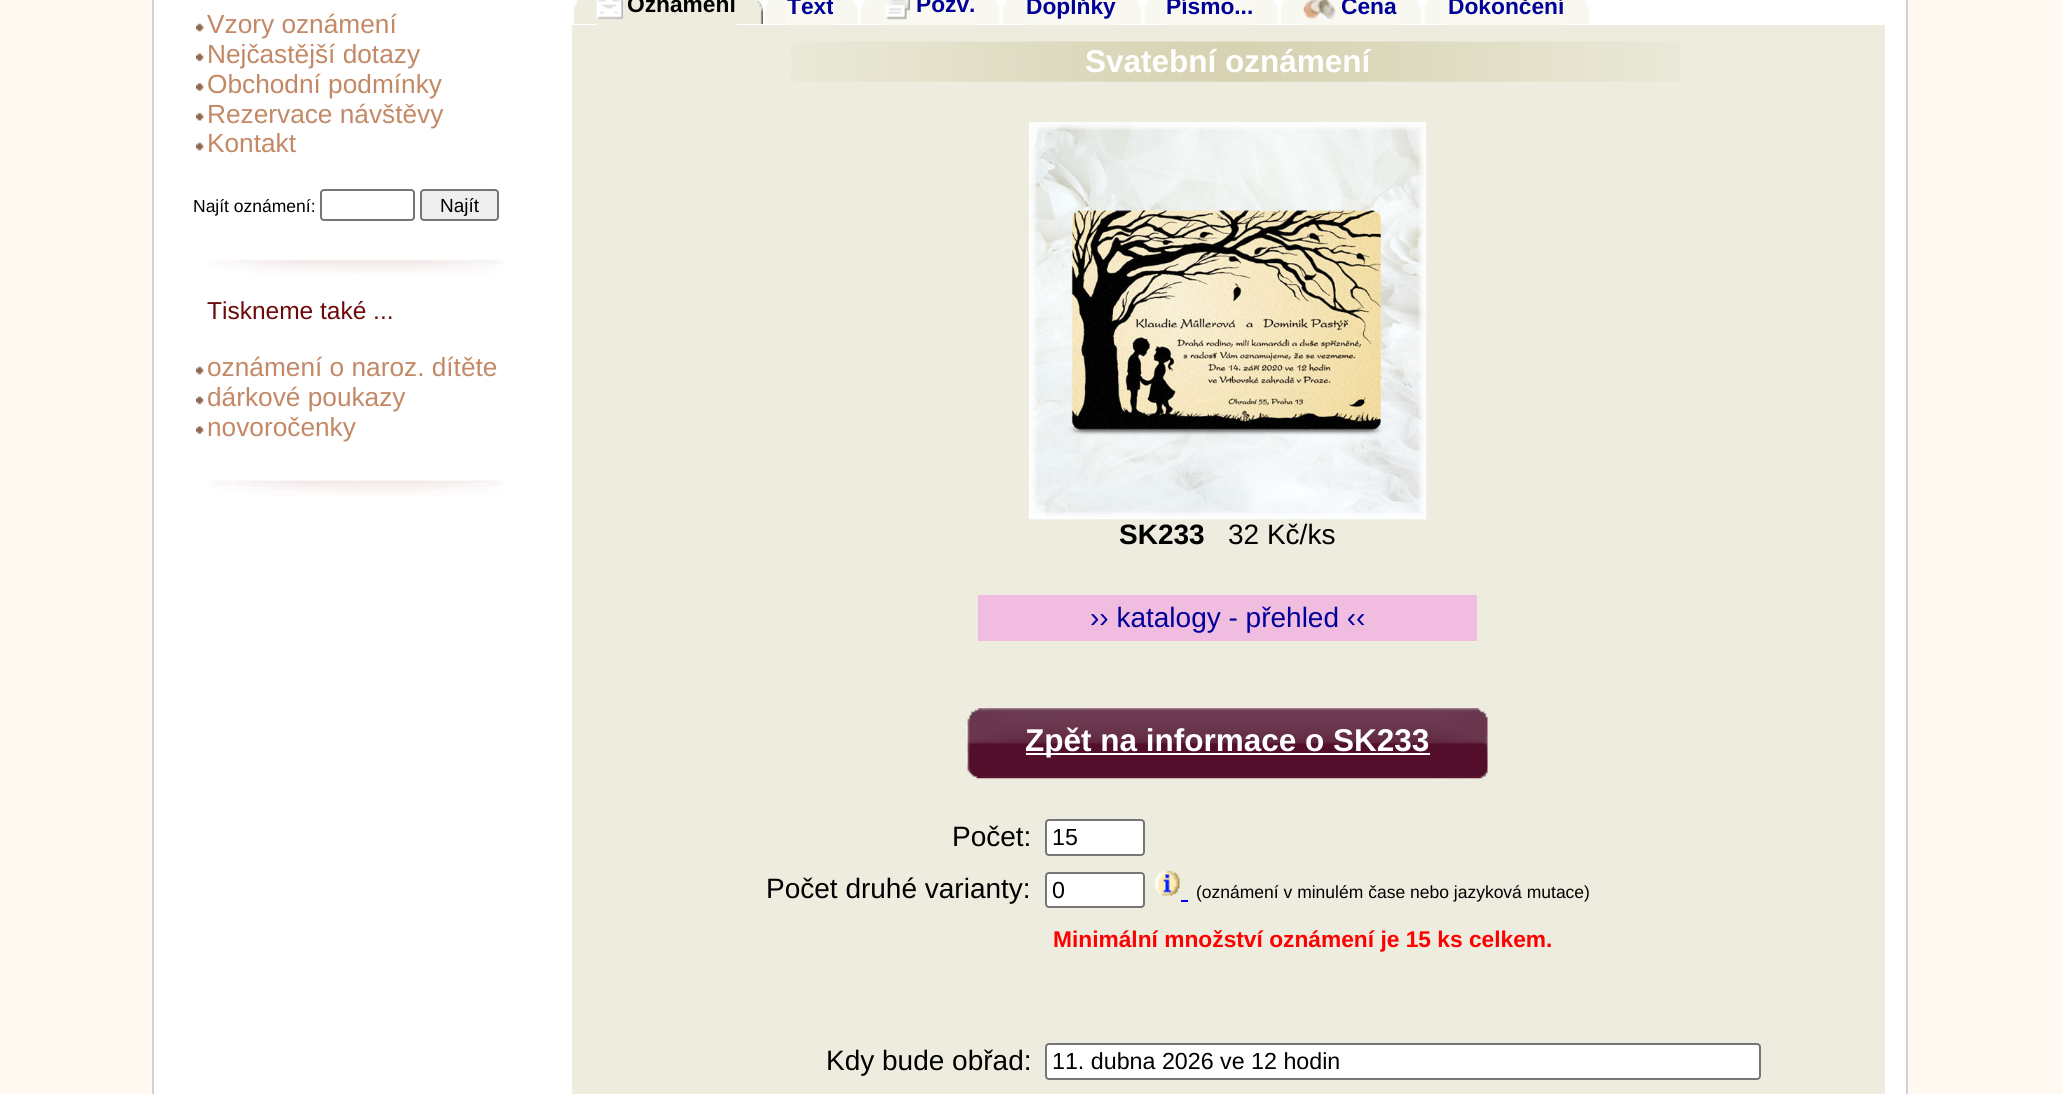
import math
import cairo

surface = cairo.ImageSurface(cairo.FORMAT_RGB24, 2062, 1094)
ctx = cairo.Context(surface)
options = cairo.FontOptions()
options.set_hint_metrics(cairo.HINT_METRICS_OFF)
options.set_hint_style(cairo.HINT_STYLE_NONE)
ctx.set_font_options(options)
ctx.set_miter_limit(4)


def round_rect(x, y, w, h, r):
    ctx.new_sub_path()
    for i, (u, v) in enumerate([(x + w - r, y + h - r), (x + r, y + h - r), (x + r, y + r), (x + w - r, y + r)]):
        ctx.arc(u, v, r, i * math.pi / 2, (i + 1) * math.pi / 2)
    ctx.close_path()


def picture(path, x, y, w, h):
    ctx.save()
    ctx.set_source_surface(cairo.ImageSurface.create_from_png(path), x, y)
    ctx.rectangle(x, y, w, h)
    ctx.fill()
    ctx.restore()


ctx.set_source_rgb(1, 0.976, 0.945)
ctx.paint()
ctx.set_source_rgb(1, 1, 1)
ctx.rectangle(154, 0, 1752, 1094)
ctx.fill()
ctx.set_source_rgb(0.82, 0.82, 0.82)
ctx.rectangle(1906, 0, 2, 1094)
ctx.fill()
ctx.rectangle(152, 0, 2, 1094)
ctx.fill()
picture("img1.png", 196, 23, 8, 9)
ctx.select_font_face("Liberation Sans")
ctx.set_font_size(26.25)
ctx.set_source_rgb(0.765, 0.533, 0.396)
ctx.move_to(207, 33)
ctx.show_text("Vzory oznámení")
picture("img2.png", 196, 53, 8, 9)
ctx.move_to(207, 63)
ctx.show_text("Nejčastější dotazy")
picture("img3.png", 196, 83, 8, 8)
ctx.move_to(207, 93)
ctx.show_text("Obchodní podmínky")
picture("img4.png", 196, 112, 8, 9)
ctx.move_to(207, 123)
ctx.show_text("Rezervace návštěvy")
picture("img1.png", 196, 142, 8, 9)
ctx.move_to(207, 152)
ctx.show_text("Kontakt")
ctx.set_font_size(17.5)
ctx.set_source_rgb(0, 0, 0)
ctx.move_to(193, 212)
ctx.show_text("Najít oznámení:")
round_rect(321, 190, 93, 30, 3)
ctx.set_source_rgb(0.463, 0.463, 0.463)
ctx.stroke()
ctx.set_source_rgb(0.937, 0.937, 0.937)
round_rect(421, 190, 77, 30, 3)
ctx.fill_preserve()
ctx.set_source_rgb(0.463, 0.463, 0.463)
ctx.stroke()
ctx.set_font_size(19)
ctx.set_source_rgb(0, 0, 0)
ctx.move_to(440, 212)
ctx.show_text("Najít")
picture("img5.png", 209, 259, 294, 16)
ctx.set_font_size(24.5)
ctx.set_source_rgb(0.427, 0.039, 0.039)
ctx.move_to(207, 319)
ctx.show_text("Tiskneme také ...")
picture("img1.png", 196, 366, 8, 9)
ctx.set_font_size(26.25)
ctx.set_source_rgb(0.765, 0.533, 0.396)
ctx.move_to(207, 376)
ctx.show_text("oznámení o naroz. dítěte")
picture("img2.png", 196, 396, 8, 9)
ctx.move_to(207, 406)
ctx.show_text("dárkové poukazy")
picture("img3.png", 196, 426, 8, 8)
ctx.move_to(207, 436)
ctx.show_text("novoročenky")
picture("img6.png", 209, 480, 294, 16)
picture("img7.png", 573, 0, 24, 24)
ctx.set_source_rgb(0.929, 0.925, 0.871)
ctx.rectangle(597, 0, 140, 25)
ctx.fill()
picture("img8.png", 596, 0, 27, 20)
ctx.select_font_face("Liberation Sans", cairo.FONT_SLANT_NORMAL, cairo.FONT_WEIGHT_BOLD)
ctx.set_font_size(22.75)
ctx.set_source_rgb(0, 0, 0)
ctx.move_to(627, 12)
ctx.show_text("Oznámení")
picture("img9.png", 737, 0, 26, 24)
picture("img10.png", 764, 0, 24, 24)
ctx.set_source_rgb(0.973, 0.973, 0.945)
ctx.rectangle(788, 0, 45, 25)
ctx.fill()
ctx.set_source_rgb(0, 0, 0.6)
ctx.move_to(787, 14)
ctx.show_text("Text")
picture("img11.png", 833, 0, 25, 24)
picture("img12.png", 861, 0, 23, 24)
ctx.set_source_rgb(0.973, 0.973, 0.945)
ctx.rectangle(884, 0, 91, 25)
ctx.fill()
picture("img13.png", 885, 0, 25, 20)
ctx.set_source_rgb(0, 0, 0.6)
ctx.move_to(916, 12)
ctx.show_text("Pozv.")
picture("img14.png", 975, 0, 25, 24)
picture("img10.png", 1002, 0, 24, 24)
ctx.set_source_rgb(0.973, 0.973, 0.945)
ctx.rectangle(1026, 0, 91, 25)
ctx.fill()
ctx.set_source_rgb(0, 0, 0.6)
ctx.move_to(1026, 14)
ctx.show_text("Doplňky")
picture("img15.png", 1117, 0, 24, 24)
picture("img16.png", 1144, 0, 23, 24)
ctx.set_source_rgb(0.973, 0.973, 0.945)
ctx.rectangle(1167, 0, 86, 25)
ctx.fill()
ctx.set_source_rgb(0, 0, 0.6)
ctx.move_to(1166, 14)
ctx.show_text("Písmo...")
picture("img17.png", 1253, 0, 25, 24)
picture("img12.png", 1281, 0, 23, 24)
ctx.set_source_rgb(0.973, 0.973, 0.945)
ctx.rectangle(1304, 0, 93, 25)
ctx.fill()
picture("img18.png", 1303, 0, 33, 19)
ctx.set_source_rgb(0, 0, 0.6)
ctx.move_to(1341, 14)
ctx.show_text("Cena")
picture("img19.png", 1396, 0, 25, 24)
picture("img16.png", 1424, 0, 23, 24)
ctx.set_source_rgb(0.973, 0.973, 0.945)
ctx.rectangle(1447, 0, 118, 25)
ctx.fill()
ctx.set_source_rgb(0, 0, 0.6)
ctx.move_to(1448, 14)
ctx.show_text("Dokončení")
picture("img15.png", 1565, 0, 24, 24)
ctx.set_source_rgb(0.929, 0.925, 0.871)
ctx.rectangle(572, 25, 1313, 1069)
ctx.fill()
picture("img20.png", 791, 41, 889, 41)
ctx.set_font_size(31.5)
ctx.set_source_rgb(1, 1, 1)
ctx.move_to(1085, 72)
ctx.show_text("Svatební oznámení")
picture("img21.png", 1029, 122, 398, 398)
ctx.set_font_size(28)
ctx.set_source_rgb(0, 0, 0)
ctx.move_to(1119, 544)
ctx.show_text("SK233")
ctx.select_font_face("Liberation Sans")
ctx.move_to(1228, 544)
ctx.show_text("32 Kč/ks")
ctx.set_source_rgb(0.941, 0.741, 0.882)
ctx.rectangle(978, 595, 499, 46)
ctx.fill()
ctx.set_source_rgb(0, 0, 0.6)
ctx.move_to(1090, 627)
ctx.show_text("›› katalogy - přehled ‹‹")
picture("img22.png", 966, 708, 522, 71)
ctx.set_source_rgb(1, 1, 1)
ctx.rectangle(1026, 753, 404, 2)
ctx.fill()
ctx.select_font_face("Liberation Sans", cairo.FONT_SLANT_NORMAL, cairo.FONT_WEIGHT_BOLD)
ctx.set_font_size(31.5)
ctx.move_to(1025, 751)
ctx.show_text("Zpět na informace o SK233")
ctx.select_font_face("Liberation Sans")
ctx.set_font_size(28)
ctx.set_source_rgb(0, 0, 0)
ctx.move_to(952, 846)
ctx.show_text("Počet:")
ctx.set_source_rgb(1, 1, 1)
round_rect(1046, 820, 98, 35, 3)
ctx.fill_preserve()
ctx.set_source_rgb(0.463, 0.463, 0.463)
ctx.stroke()
ctx.set_font_size(23.25)
ctx.set_source_rgb(0, 0, 0)
ctx.move_to(1052, 845)
ctx.show_text("15")
ctx.set_font_size(28)
ctx.move_to(766, 898)
ctx.show_text("Počet druhé varianty:")
ctx.set_source_rgb(1, 1, 1)
round_rect(1046, 873, 98, 34, 3)
ctx.fill_preserve()
ctx.set_source_rgb(0.463, 0.463, 0.463)
ctx.stroke()
ctx.set_font_size(23.25)
ctx.set_source_rgb(0, 0, 0)
ctx.move_to(1052, 898)
ctx.show_text("0")
picture("img23.png", 1154, 870, 26, 26)
ctx.set_source_rgb(0, 0, 0.933)
ctx.rectangle(1181, 900, 7, 2)
ctx.fill()
ctx.set_font_size(17.5)
ctx.set_source_rgb(0, 0, 0)
ctx.move_to(1196, 898)
ctx.show_text("(oznámení v minulém čase nebo jazyková mutace)")
ctx.select_font_face("Liberation Sans", cairo.FONT_SLANT_NORMAL, cairo.FONT_WEIGHT_BOLD)
ctx.set_font_size(22.75)
ctx.set_source_rgb(1, 0, 0)
ctx.move_to(1053, 947)
ctx.show_text("Minimální množství oznámení je 15 ks celkem.")
ctx.select_font_face("Liberation Sans")
ctx.set_font_size(28)
ctx.set_source_rgb(0, 0, 0)
ctx.move_to(826, 1070)
ctx.show_text("Kdy bude obřad:")
ctx.set_source_rgb(1, 1, 1)
round_rect(1046, 1044, 714, 35, 3)
ctx.fill_preserve()
ctx.set_source_rgb(0.463, 0.463, 0.463)
ctx.stroke()
ctx.set_font_size(23.25)
ctx.set_source_rgb(0, 0, 0)
ctx.move_to(1052, 1069)
ctx.show_text("11. dubna 2026 ve 12 hodin")
surface.write_to_png("page.png")
